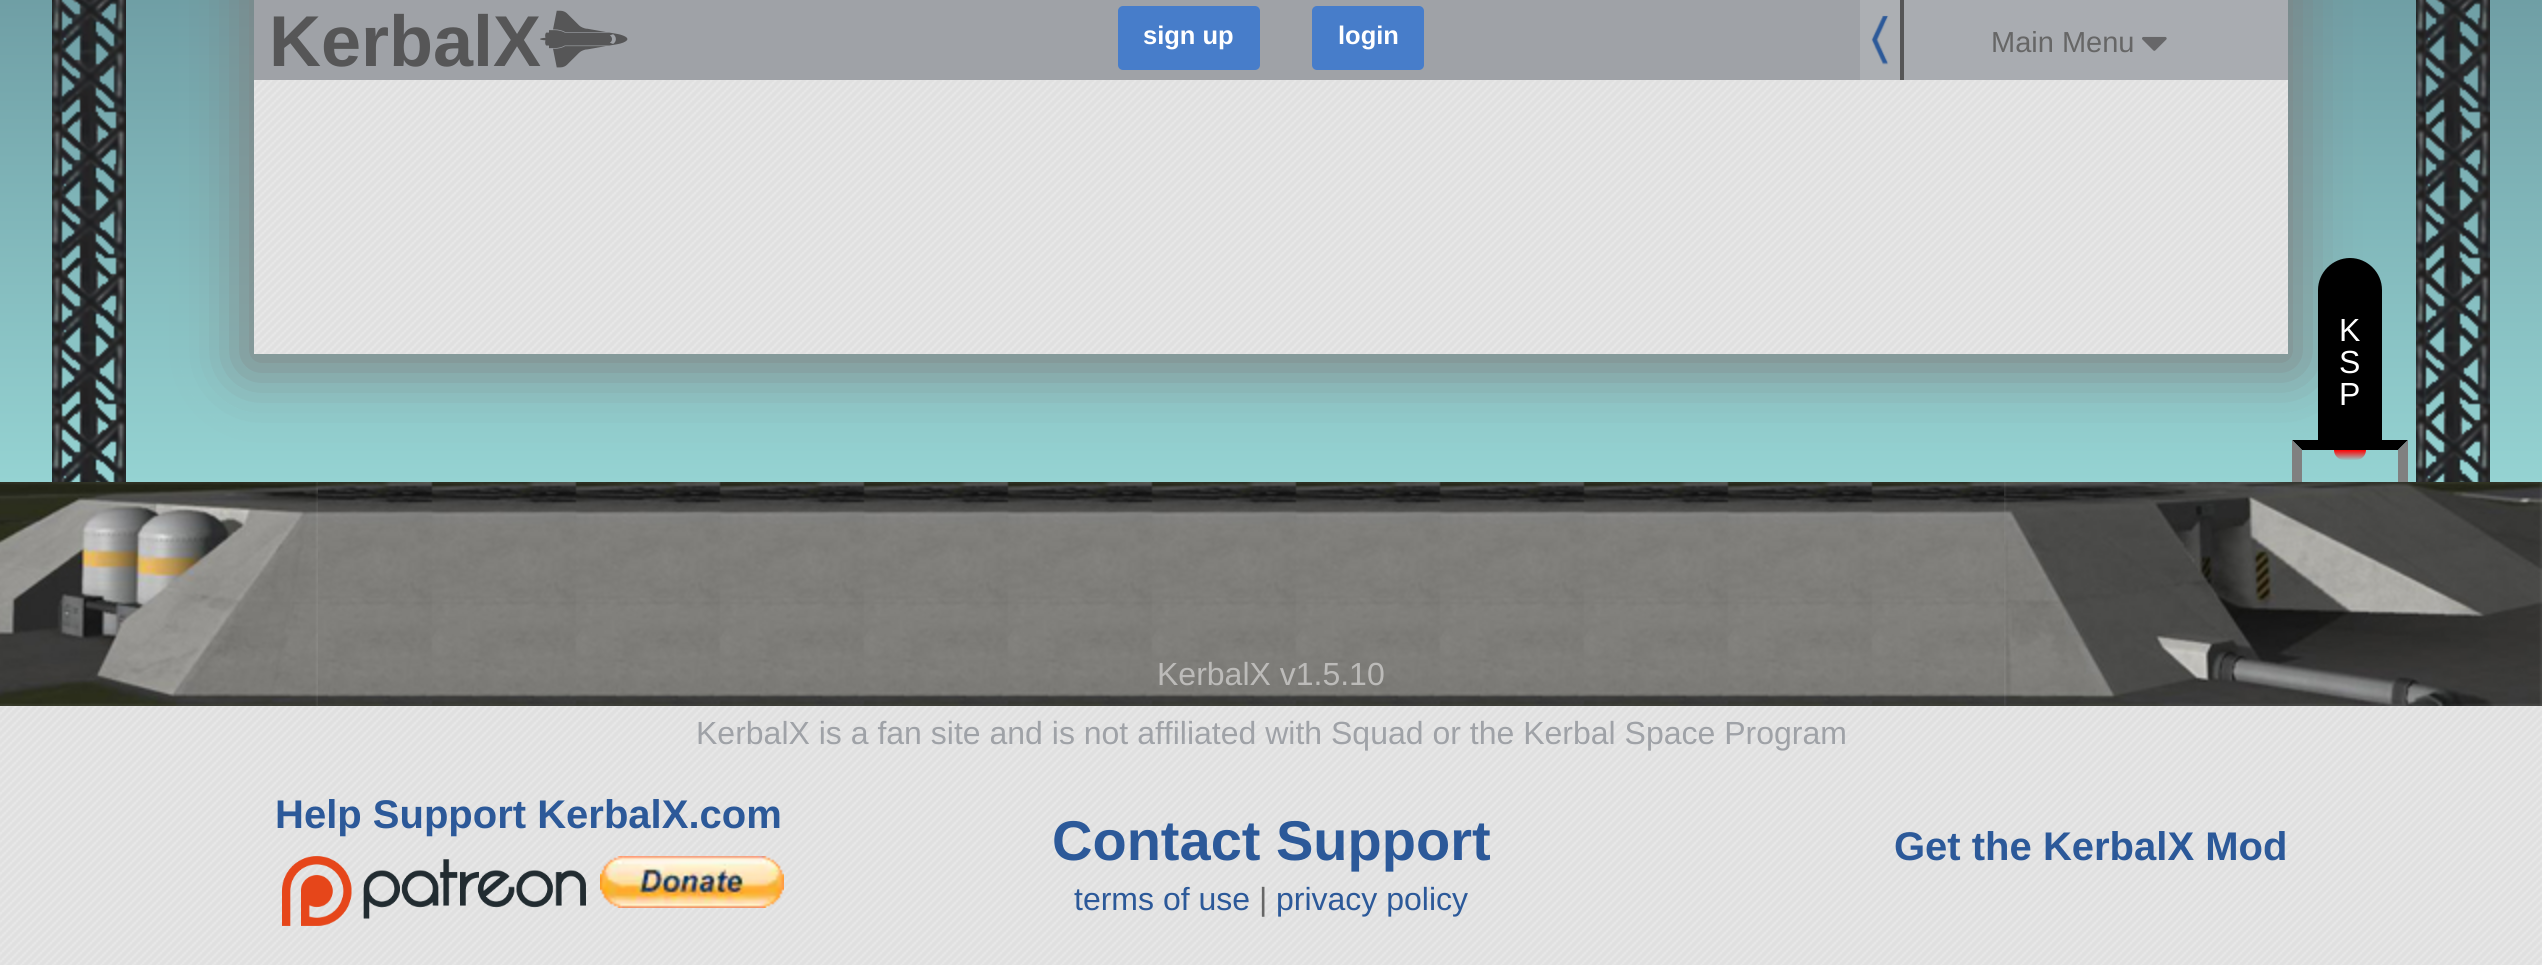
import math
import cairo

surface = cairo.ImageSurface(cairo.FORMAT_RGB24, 2542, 965)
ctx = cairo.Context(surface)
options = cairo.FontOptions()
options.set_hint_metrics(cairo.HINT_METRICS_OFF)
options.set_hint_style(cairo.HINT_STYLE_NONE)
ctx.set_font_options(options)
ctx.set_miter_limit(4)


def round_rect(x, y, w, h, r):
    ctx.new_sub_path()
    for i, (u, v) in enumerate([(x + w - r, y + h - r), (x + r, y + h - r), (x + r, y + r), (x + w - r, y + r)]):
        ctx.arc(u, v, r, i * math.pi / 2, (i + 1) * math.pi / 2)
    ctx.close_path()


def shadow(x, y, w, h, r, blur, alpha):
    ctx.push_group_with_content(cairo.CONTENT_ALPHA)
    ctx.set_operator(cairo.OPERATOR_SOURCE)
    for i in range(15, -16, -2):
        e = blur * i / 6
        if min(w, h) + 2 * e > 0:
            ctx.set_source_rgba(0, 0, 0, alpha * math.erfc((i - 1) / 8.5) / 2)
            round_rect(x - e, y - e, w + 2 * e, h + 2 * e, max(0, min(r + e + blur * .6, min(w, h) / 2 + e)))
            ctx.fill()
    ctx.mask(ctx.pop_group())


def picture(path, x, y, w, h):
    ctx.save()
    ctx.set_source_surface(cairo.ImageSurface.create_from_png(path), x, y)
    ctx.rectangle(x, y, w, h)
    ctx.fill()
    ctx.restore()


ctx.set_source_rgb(1, 1, 1)
ctx.paint()
picture("img1.png", 0, 706, 2542, 259)
gradient = cairo.LinearGradient(1271, -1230, 1271, 482)
gradient.add_color_stop_rgba(0, 0.059, 0.098, 0.196, 1)
gradient.add_color_stop_rgba(1, 0.584, 0.827, 0.824, 1)
ctx.set_source(gradient)
ctx.rectangle(0, 0, 2542, 482)
ctx.fill()
picture("img2.png", 52, 0, 74, 482)
picture("img2.png", 2416, 0, 74, 482)
ctx.set_source_rgb(0.502, 0.502, 0.502)
shadow(244, -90, 2054, 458, 0, 30, 1)
picture("img3.png", 254, 80, 2034, 274)
ctx.set_source_rgb(0.624, 0.635, 0.655)
ctx.rectangle(254, 0, 1606, 80)
ctx.fill()
ctx.select_font_face("Liberation Sans", cairo.FONT_SLANT_NORMAL, cairo.FONT_WEIGHT_BOLD)
ctx.set_font_size(72)
ctx.set_source_rgb(0.337, 0.337, 0.341)
ctx.move_to(269, 66)
ctx.show_text("KerbalX")
picture("img4.png", 540, 10, 88, 58)
ctx.set_source_rgb(0.278, 0.49, 0.792)
round_rect(1118, 6, 142, 64, 5)
ctx.fill()
ctx.set_font_size(25.5)
ctx.set_source_rgb(1, 1, 1)
ctx.move_to(1143, 44)
ctx.show_text("sign up")
ctx.set_source_rgb(0.278, 0.49, 0.792)
round_rect(1312, 6, 112, 64, 5)
ctx.fill()
ctx.set_source_rgb(1, 1, 1)
ctx.move_to(1338, 44)
ctx.show_text("login")
ctx.set_source_rgb(0.675, 0.686, 0.702)
ctx.rectangle(1860, 0, 40, 80)
ctx.fill()
ctx.set_source_rgb(0.337, 0.337, 0.341)
ctx.rectangle(1900, 0, 4, 80)
ctx.fill()
picture("img5.png", 1871, 15, 18, 50)
ctx.set_source_rgb(0.663, 0.675, 0.694)
ctx.rectangle(1904, 0, 384, 80)
ctx.fill()
ctx.select_font_face("Liberation Sans")
ctx.set_font_size(29)
ctx.set_source_rgb(0.4, 0.4, 0.4)
ctx.move_to(1991, 52)
ctx.show_text("Main Menu")
picture("img6.png", 2142, 36, 25, 15)
ctx.set_source_rgb(0, 0, 0)
ctx.rectangle(2318, 322, 64, 118)
ctx.fill()
ctx.new_path()
ctx.move_to(2350, 258)
ctx.curve_to(2367.5, 258, 2382, 272.5, 2382, 290)
ctx.line_to(2382, 322)
ctx.line_to(2318, 322)
ctx.line_to(2318, 290)
ctx.curve_to(2318, 272.5, 2332.5, 258, 2350, 258)
ctx.close_path()
ctx.fill()
ctx.set_font_size(32)
ctx.set_source_rgb(1, 1, 1)
ctx.move_to(2339, 341)
ctx.show_text("K")
ctx.move_to(2339, 373)
ctx.show_text("S")
ctx.move_to(2339, 405)
ctx.show_text("P")
gradient = cairo.LinearGradient(2350, 450, 2350, 460)
gradient.add_color_stop_rgba(0, 1, 0, 0, 1)
gradient.add_color_stop_rgba(1, 0.596, 0.776, 0.773, 1)
ctx.set_source(gradient)
ctx.new_path()
ctx.move_to(2334, 450)
ctx.line_to(2366, 450)
ctx.curve_to(2366, 455.5, 2361.5, 460, 2356, 460)
ctx.line_to(2344, 460)
ctx.curve_to(2338.5, 460, 2334, 455.5, 2334, 450)
ctx.close_path()
ctx.fill()
ctx.set_source_rgb(0, 0, 0)
ctx.new_path()
ctx.move_to(2292, 440)
ctx.line_to(2408, 440)
ctx.line_to(2398, 450)
ctx.line_to(2302, 450)
ctx.close_path()
ctx.fill()
ctx.set_source_rgb(0.502, 0.502, 0.502)
ctx.new_path()
ctx.move_to(2408, 440)
ctx.line_to(2408, 482)
ctx.line_to(2398, 482)
ctx.line_to(2398, 450)
ctx.close_path()
ctx.fill()
ctx.new_path()
ctx.move_to(2292, 482)
ctx.line_to(2292, 440)
ctx.line_to(2302, 450)
ctx.line_to(2302, 482)
ctx.close_path()
ctx.fill()
picture("img7.png", 318, 482, 1686, 224)
picture("img8.png", 0, 482, 318, 224)
ctx.set_source_rgb(0.737, 0.733, 0.725)
ctx.move_to(1157, 685)
ctx.show_text("KerbalX v1.5.10")
picture("img9.png", 2004, 482, 538, 224)
ctx.set_source_rgb(0.624, 0.635, 0.655)
ctx.move_to(696, 744)
ctx.show_text("KerbalX is a fan site and is not affiliated with Squad or the Kerbal Space Program")
ctx.select_font_face("Liberation Sans", cairo.FONT_SLANT_NORMAL, cairo.FONT_WEIGHT_BOLD)
ctx.set_font_size(40)
ctx.set_source_rgb(0.173, 0.349, 0.6)
ctx.move_to(275, 828)
ctx.show_text("Help Support KerbalX.com")
picture("img10.png", 282, 856, 304, 70)
picture("img11.png", 600, 856, 184, 52)
ctx.set_font_size(56)
ctx.move_to(1052, 860)
ctx.show_text("Contact Support")
ctx.select_font_face("Liberation Sans")
ctx.set_font_size(32)
ctx.move_to(1074, 910)
ctx.show_text("terms of use")
ctx.set_source_rgb(0.4, 0.4, 0.4)
ctx.move_to(1259, 910)
ctx.show_text("|")
ctx.set_source_rgb(0.173, 0.349, 0.6)
ctx.move_to(1276, 910)
ctx.show_text("privacy policy")
ctx.select_font_face("Liberation Sans", cairo.FONT_SLANT_NORMAL, cairo.FONT_WEIGHT_BOLD)
ctx.set_font_size(40)
ctx.move_to(1894, 860)
ctx.show_text("Get the KerbalX Mod")
surface.write_to_png("page.png")
